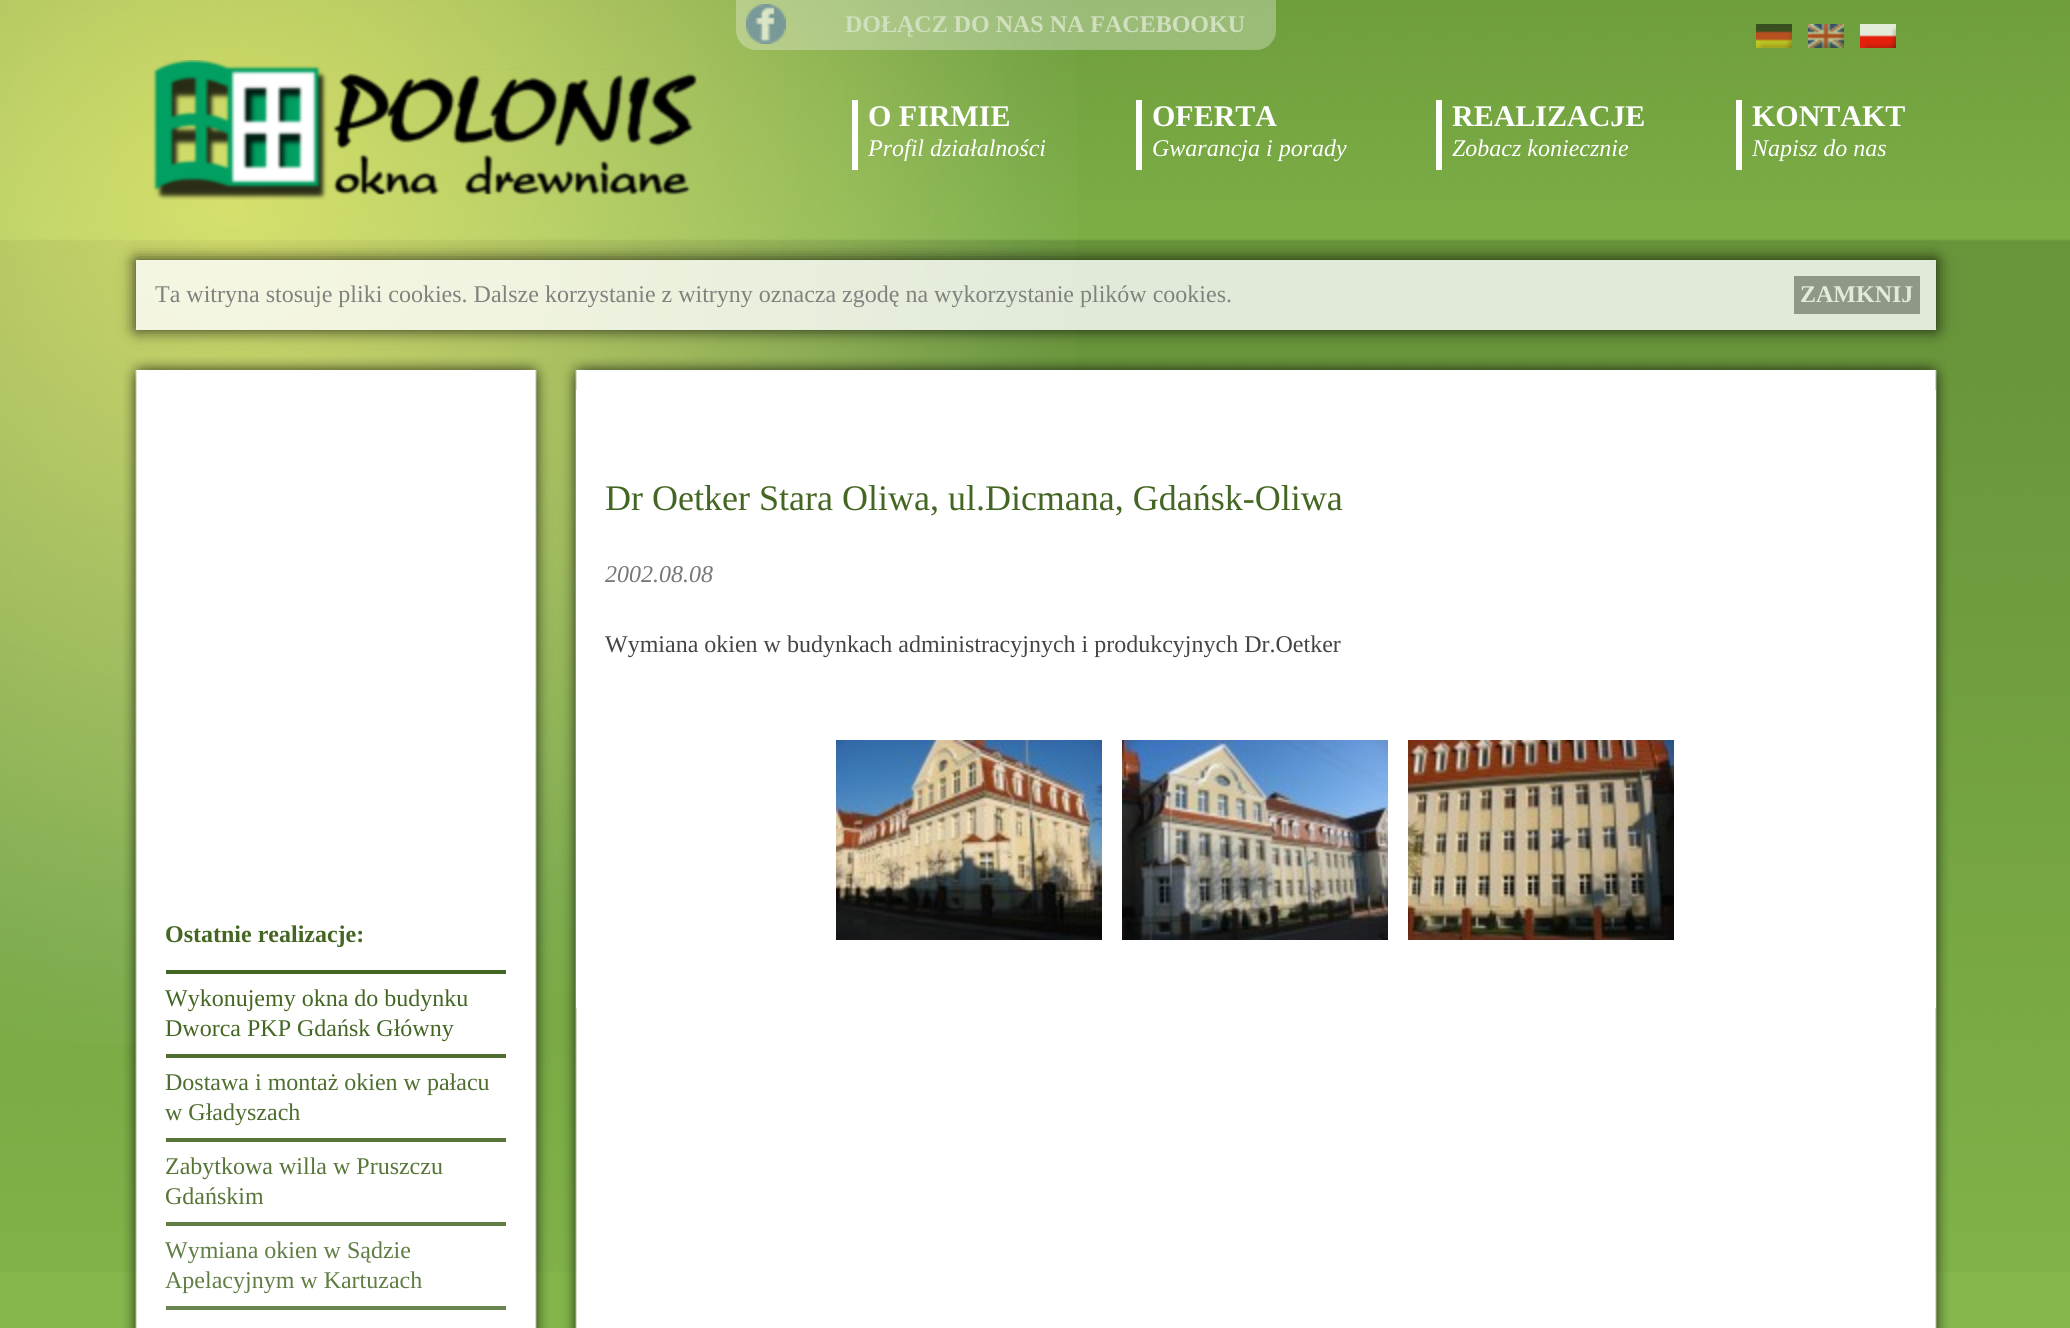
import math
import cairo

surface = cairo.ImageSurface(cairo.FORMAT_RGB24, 2070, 1328)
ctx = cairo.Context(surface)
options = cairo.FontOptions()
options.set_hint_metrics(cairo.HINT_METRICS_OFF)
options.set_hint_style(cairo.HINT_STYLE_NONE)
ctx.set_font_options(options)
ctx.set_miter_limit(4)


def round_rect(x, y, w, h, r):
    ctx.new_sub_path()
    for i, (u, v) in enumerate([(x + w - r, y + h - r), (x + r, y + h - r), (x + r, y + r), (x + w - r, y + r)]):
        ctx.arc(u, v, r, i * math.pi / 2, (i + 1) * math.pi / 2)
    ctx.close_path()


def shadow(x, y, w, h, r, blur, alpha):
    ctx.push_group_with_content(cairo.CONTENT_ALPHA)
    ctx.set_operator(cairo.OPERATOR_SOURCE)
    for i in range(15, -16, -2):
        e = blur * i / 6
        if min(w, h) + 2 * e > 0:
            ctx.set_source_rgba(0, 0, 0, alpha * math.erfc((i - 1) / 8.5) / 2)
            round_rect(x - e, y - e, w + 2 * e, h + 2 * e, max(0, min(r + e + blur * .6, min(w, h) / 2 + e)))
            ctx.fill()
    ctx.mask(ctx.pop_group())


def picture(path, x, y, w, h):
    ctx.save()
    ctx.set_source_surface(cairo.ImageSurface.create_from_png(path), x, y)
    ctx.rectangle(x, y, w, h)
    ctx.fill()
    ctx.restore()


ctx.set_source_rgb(0.514, 0.714, 0.294)
ctx.paint()
picture("img1.png", 0, 0, 2070, 1272)
picture("img2.png", 0, 0, 1077, 1045)
ctx.set_source_rgba(1, 1, 1, 0.3)
ctx.new_path()
ctx.move_to(736, 0)
ctx.line_to(1276, 0)
ctx.line_to(1276, 30)
ctx.curve_to(1276, 41, 1267, 50, 1256, 50)
ctx.line_to(756, 50)
ctx.curve_to(745, 50, 736, 41, 736, 30)
ctx.close_path()
ctx.fill()
picture("img3.png", 746, 4, 40, 40)
ctx.select_font_face("Liberation Serif", cairo.FONT_SLANT_NORMAL, cairo.FONT_WEIGHT_BOLD)
ctx.set_font_size(24)
ctx.set_source_rgb(0.816, 0.875, 0.745)
ctx.move_to(845, 32)
ctx.show_text("DOŁĄCZ DO NAS NA FACEBOOKU")
picture("img4.png", 1756, 24, 36, 24)
picture("img5.png", 1808, 24, 36, 24)
picture("img6.png", 1860, 24, 36, 24)
picture("img7.png", 153, 60, 544, 140)
ctx.set_source_rgb(1, 1, 1)
ctx.rectangle(852, 100, 6, 70)
ctx.fill()
ctx.set_font_size(30)
ctx.move_to(868, 126)
ctx.show_text("O FIRMIE")
ctx.select_font_face("Liberation Serif", cairo.FONT_SLANT_ITALIC)
ctx.set_font_size(24)
ctx.move_to(868, 156)
ctx.show_text("Profil działalności")
ctx.rectangle(1136, 100, 6, 70)
ctx.fill()
ctx.select_font_face("Liberation Serif", cairo.FONT_SLANT_NORMAL, cairo.FONT_WEIGHT_BOLD)
ctx.set_font_size(30)
ctx.move_to(1152, 126)
ctx.show_text("OFERTA")
ctx.select_font_face("Liberation Serif", cairo.FONT_SLANT_ITALIC)
ctx.set_font_size(24)
ctx.move_to(1152, 156)
ctx.show_text("Gwarancja i porady")
ctx.rectangle(1436, 100, 6, 70)
ctx.fill()
ctx.select_font_face("Liberation Serif", cairo.FONT_SLANT_NORMAL, cairo.FONT_WEIGHT_BOLD)
ctx.set_font_size(30)
ctx.move_to(1452, 126)
ctx.show_text("REALIZACJE")
ctx.select_font_face("Liberation Serif", cairo.FONT_SLANT_ITALIC)
ctx.set_font_size(24)
ctx.move_to(1452, 156)
ctx.show_text("Zobacz koniecznie")
ctx.rectangle(1736, 100, 6, 70)
ctx.fill()
ctx.select_font_face("Liberation Serif", cairo.FONT_SLANT_NORMAL, cairo.FONT_WEIGHT_BOLD)
ctx.set_font_size(30)
ctx.move_to(1752, 126)
ctx.show_text("KONTAKT")
ctx.select_font_face("Liberation Serif", cairo.FONT_SLANT_ITALIC)
ctx.set_font_size(24)
ctx.move_to(1752, 156)
ctx.show_text("Napisz do nas")
ctx.save()
ctx.set_fill_rule(cairo.FILL_RULE_EVEN_ODD)
ctx.new_path()
ctx.move_to(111, 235)
ctx.line_to(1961, 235)
ctx.line_to(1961, 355)
ctx.line_to(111, 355)
ctx.close_path()
ctx.move_to(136, 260)
ctx.line_to(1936, 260)
ctx.line_to(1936, 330)
ctx.line_to(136, 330)
ctx.close_path()
ctx.clip()
ctx.set_source_rgb(0, 0, 0)
shadow(136, 260, 1800, 70, 0, 8, 0.8)
ctx.restore()
ctx.set_source_rgba(1, 1, 1, 0.8)
ctx.rectangle(136, 260, 1800, 70)
ctx.fill()
ctx.select_font_face("Liberation Serif")
ctx.set_source_rgb(0.506, 0.51, 0.494)
ctx.move_to(155, 302)
ctx.show_text("Ta witryna stosuje pliki cookies. Dalsze korzystanie z witryny oznacza zgodę na wykorzystanie plików cookies.")
ctx.set_source_rgb(0.561, 0.596, 0.525)
ctx.rectangle(1794, 276, 126, 38)
ctx.fill()
ctx.select_font_face("Liberation Serif", cairo.FONT_SLANT_NORMAL, cairo.FONT_WEIGHT_BOLD)
ctx.set_source_rgb(0.882, 0.918, 0.847)
ctx.move_to(1800, 302)
ctx.show_text("ZAMKNIJ")
picture("img8.png", 126, 357, 1820, 13)
picture("img9.png", 123, 370, 1825, 20)
picture("img10.png", 123, 390, 1826, 938)
ctx.set_source_rgb(1, 1, 1)
ctx.rectangle(576, 390, 1360, 618)
ctx.fill()
ctx.select_font_face("Liberation Serif")
ctx.set_font_size(36)
ctx.set_source_rgb(0.267, 0.4, 0.137)
ctx.move_to(605, 510)
ctx.show_text("Dr Oetker Stara Oliwa, ul.Dicmana, Gdańsk-Oliwa")
ctx.select_font_face("Liberation Serif", cairo.FONT_SLANT_ITALIC)
ctx.set_font_size(24)
ctx.set_source_rgb(0.463, 0.463, 0.463)
ctx.move_to(605, 582)
ctx.show_text("2002.08.08")
ctx.select_font_face("Liberation Serif")
ctx.set_source_rgb(0.267, 0.267, 0.267)
ctx.move_to(605, 652)
ctx.show_text("Wymiana okien w budynkach administracyjnych i produkcyjnych Dr.Oetker")
picture("img11.png", 836, 740, 266, 200)
picture("img12.png", 1122, 740, 266, 200)
picture("img13.png", 1408, 740, 266, 200)
ctx.select_font_face("Liberation Serif", cairo.FONT_SLANT_NORMAL, cairo.FONT_WEIGHT_BOLD)
ctx.set_source_rgb(0.267, 0.4, 0.137)
ctx.move_to(165, 942)
ctx.show_text("Ostatnie realizacje:")
ctx.rectangle(166, 970, 340, 4)
ctx.fill()
ctx.select_font_face("Liberation Serif")
ctx.move_to(165, 1006)
ctx.show_text("Wykonujemy okna do budynku")
ctx.move_to(165, 1036)
ctx.show_text("Dworca PKP Gdańsk Główny")
ctx.set_source_rgb(0.302, 0.431, 0.18)
ctx.rectangle(166, 1054, 340, 4)
ctx.fill()
ctx.move_to(165, 1090)
ctx.show_text("Dostawa i montaż okien w pałacu")
ctx.move_to(165, 1120)
ctx.show_text("w Gładyszach")
ctx.set_source_rgb(0.341, 0.459, 0.224)
ctx.rectangle(166, 1138, 340, 4)
ctx.fill()
ctx.move_to(165, 1174)
ctx.show_text("Zabytkowa willa w Pruszczu")
ctx.move_to(165, 1204)
ctx.show_text("Gdańskim")
ctx.set_source_rgb(0.376, 0.49, 0.267)
ctx.rectangle(166, 1222, 340, 4)
ctx.fill()
ctx.move_to(165, 1258)
ctx.show_text("Wymiana okien w Sądzie")
ctx.move_to(165, 1288)
ctx.show_text("Apelacyjnym w Kartuzach")
ctx.set_source_rgb(0.412, 0.522, 0.31)
ctx.rectangle(166, 1306, 340, 4)
ctx.fill()
surface.write_to_png("page.png")
